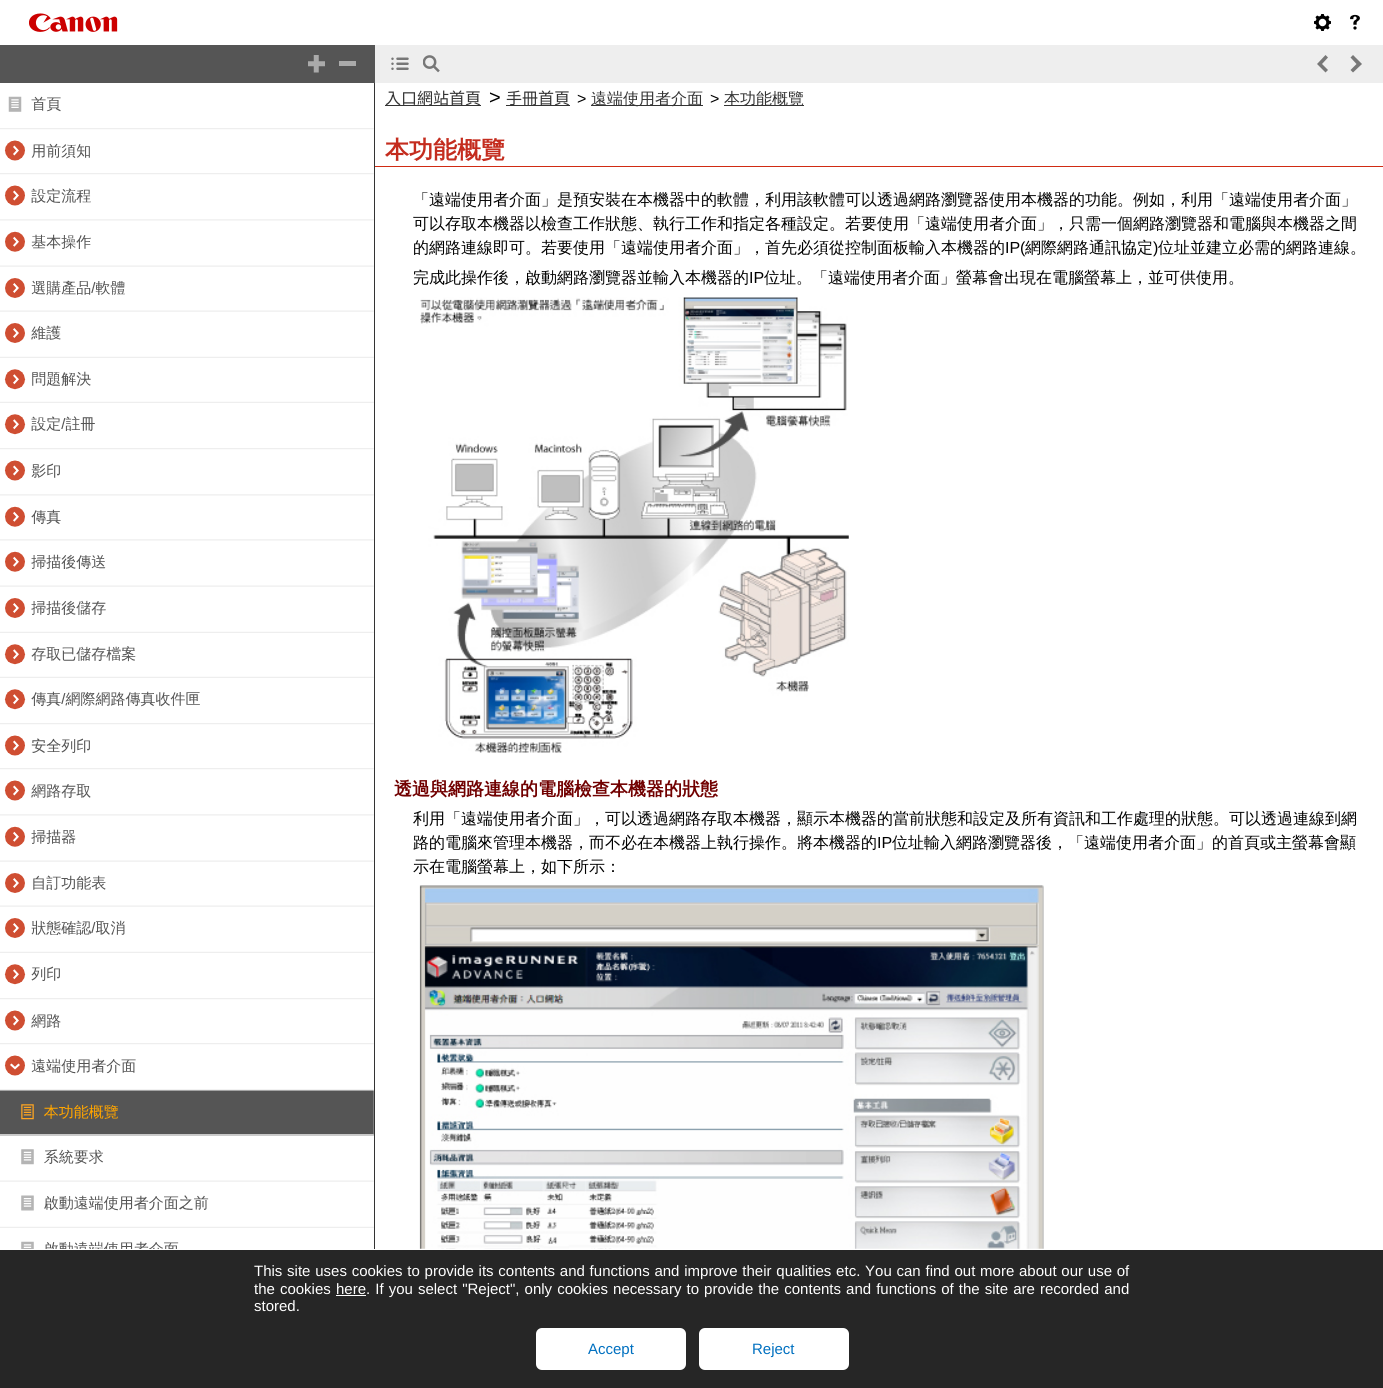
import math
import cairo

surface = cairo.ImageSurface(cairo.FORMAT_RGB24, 1383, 1388)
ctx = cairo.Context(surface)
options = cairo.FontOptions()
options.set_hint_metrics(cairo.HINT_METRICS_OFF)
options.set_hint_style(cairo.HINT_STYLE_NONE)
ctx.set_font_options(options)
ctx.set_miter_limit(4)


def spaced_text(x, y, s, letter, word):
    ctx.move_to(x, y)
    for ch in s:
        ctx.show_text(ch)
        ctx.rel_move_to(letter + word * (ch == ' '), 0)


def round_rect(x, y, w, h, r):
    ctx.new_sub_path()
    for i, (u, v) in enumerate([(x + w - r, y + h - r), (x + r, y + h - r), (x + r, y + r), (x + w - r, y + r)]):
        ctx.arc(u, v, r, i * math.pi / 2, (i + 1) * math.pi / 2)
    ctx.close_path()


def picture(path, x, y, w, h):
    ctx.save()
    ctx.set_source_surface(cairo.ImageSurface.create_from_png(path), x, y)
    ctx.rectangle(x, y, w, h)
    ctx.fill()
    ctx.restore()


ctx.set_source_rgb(1, 1, 1)
ctx.paint()
picture("img1.png", 29, 13, 89, 19)
picture("img2.png", 1314, 14, 17, 17)
picture("img3.png", 1350, 14, 10, 16)
ctx.set_source_rgb(0.333, 0.333, 0.333)
ctx.rectangle(0, 45, 375, 38)
ctx.fill()
picture("img4.png", 308, 55, 17, 18)
ctx.set_source_rgb(0.667, 0.667, 0.667)
ctx.rectangle(339, 61, 17, 5)
ctx.fill()
ctx.set_source_rgb(0.933, 0.933, 0.933)
ctx.rectangle(375, 45, 1008, 38)
ctx.fill()
picture("img5.png", 391, 57, 18, 13)
picture("img6.png", 423, 55, 17, 18)
ctx.set_source_rgb(0.467, 0.467, 0.467)
ctx.new_path()
ctx.move_to(1328, 70)
ctx.line_to(1322, 64)
ctx.line_to(1328, 57.5)
ctx.line_to(1325.5, 55)
ctx.line_to(1317, 64)
ctx.line_to(1325.5, 72.5)
ctx.close_path()
ctx.move_to(1350.5, 57.5)
ctx.line_to(1356.5, 64)
ctx.line_to(1350.5, 70)
ctx.line_to(1353, 72.5)
ctx.line_to(1362, 64)
ctx.line_to(1353, 55)
ctx.close_path()
ctx.fill()
ctx.set_source_rgb(0.2, 0.2, 0.2)
ctx.rectangle(374, 83, 1, 1166)
ctx.fill()
picture("img7.png", 0, 96, 374, 1153)
ctx.rectangle(385, 105, 96, 1)
ctx.fill()
ctx.select_font_face("Noto Sans CJK TC")
ctx.set_font_size(16)
ctx.move_to(385, 104)
ctx.show_text("入口網站首頁")
ctx.select_font_face("Liberation Sans")
ctx.set_font_size(20)
ctx.set_source_rgb(0, 0, 0)
ctx.move_to(489, 104)
ctx.show_text(">")
ctx.set_source_rgb(0.2, 0.2, 0.2)
ctx.rectangle(506, 105, 64, 1)
ctx.fill()
ctx.select_font_face("Noto Sans CJK TC")
ctx.set_font_size(16)
ctx.move_to(506, 104)
ctx.show_text("手冊首頁")
ctx.select_font_face("Liberation Sans")
ctx.set_source_rgb(0, 0, 0)
ctx.move_to(577, 104)
ctx.show_text(">")
ctx.set_source_rgb(0.2, 0.2, 0.2)
ctx.rectangle(591, 105, 112, 1)
ctx.fill()
ctx.select_font_face("WenQuanYi Zen Hei Medium")
ctx.move_to(591, 104)
ctx.show_text("遠端使用者介面")
ctx.select_font_face("Liberation Sans")
ctx.set_source_rgb(0, 0, 0)
ctx.move_to(710, 104)
ctx.show_text(">")
ctx.set_source_rgb(0.2, 0.2, 0.2)
ctx.rectangle(724, 105, 80, 1)
ctx.fill()
ctx.select_font_face("WenQuanYi Zen Hei Medium")
ctx.move_to(724, 104)
ctx.show_text("本功能概覽")
ctx.set_source_rgb(0.816, 0.169, 0.078)
ctx.rectangle(375, 166, 1008, 1)
ctx.fill()
ctx.select_font_face("WenQuanYi Zen Hei", cairo.FONT_SLANT_NORMAL, cairo.FONT_WEIGHT_BOLD)
ctx.set_font_size(24)
ctx.set_source_rgb(0.769, 0.173, 0.118)
ctx.move_to(385, 158)
ctx.show_text("本功能概覽")
ctx.select_font_face("WenQuanYi Zen Hei Medium")
ctx.set_font_size(16)
ctx.set_source_rgb(0, 0, 0)
ctx.move_to(413, 205)
ctx.show_text("「遠端使用者介面」是預安裝在本機器中的軟體，利用該軟體可以透過網路瀏覽器使用本機器的功能。例如，利用「遠端使用者介面」")
ctx.move_to(413, 229)
ctx.show_text("可以存取本機器以檢查工作狀態、執行工作和指定各種設定。若要使用「遠端使用者介面」，只需一個網路瀏覽器和電腦與本機器之間")
ctx.move_to(413, 253)
ctx.show_text("的網路連線即可。若要使用「遠端使用者介面」，首先必須從控制面板輸入本機器的")
ctx.select_font_face("Liberation Sans")
ctx.move_to(1005, 253)
ctx.show_text("IP(")
ctx.select_font_face("WenQuanYi Zen Hei Medium")
ctx.move_to(1025, 253)
ctx.show_text("網際網路通訊協定")
ctx.select_font_face("Liberation Sans")
ctx.move_to(1153, 253)
ctx.show_text(")")
ctx.select_font_face("WenQuanYi Zen Hei Medium")
ctx.move_to(1158, 253)
ctx.show_text("位址並建立必需的網路連線。")
ctx.move_to(413, 283)
ctx.show_text("完成此操作後，啟動網路瀏覽器並輸入本機器的")
ctx.select_font_face("Liberation Sans")
ctx.move_to(749, 283)
ctx.show_text("IP")
ctx.select_font_face("WenQuanYi Zen Hei Medium")
ctx.move_to(764, 283)
ctx.show_text("位址。「遠端使用者介面」螢幕會出現在電腦螢幕上，並可供使用。")
picture("img8.png", 420, 297, 429, 456)
ctx.select_font_face("WenQuanYi Zen Hei", cairo.FONT_SLANT_NORMAL, cairo.FONT_WEIGHT_BOLD)
ctx.set_font_size(18)
ctx.set_source_rgb(0.443, 0, 0)
ctx.move_to(394, 795)
ctx.show_text("透過與網路連線的電腦檢查本機器的狀態")
ctx.select_font_face("WenQuanYi Zen Hei Medium")
ctx.set_font_size(16)
ctx.set_source_rgb(0, 0, 0)
ctx.move_to(413, 824)
ctx.show_text("利用「遠端使用者介面」，可以透過網路存取本機器，顯示本機器的當前狀態和設定及所有資訊和工作處理的狀態。可以透過連線到網")
ctx.move_to(413, 848)
ctx.show_text("路的電腦來管理本機器，而不必在本機器上執行操作。將本機器的")
ctx.select_font_face("Liberation Sans")
ctx.move_to(877, 848)
ctx.show_text("IP")
ctx.select_font_face("WenQuanYi Zen Hei Medium")
ctx.move_to(892, 848)
ctx.show_text("位址輸入網路瀏覽器後，「遠端使用者介面」的首頁或主螢幕會顯")
ctx.move_to(413, 872)
ctx.show_text("示在電腦螢幕上，如下所示：")
picture("img9.png", 419, 885, 625, 364)
ctx.set_source_rgb(0.149, 0.149, 0.149)
ctx.rectangle(0, 1250, 1383, 138)
ctx.fill()
ctx.select_font_face("Liberation Sans")
ctx.set_font_size(15)
ctx.set_source_rgb(1, 1, 1)
spaced_text(254, 1276, "This site uses cookies to provide its contents and functions and improve their qualities etc. You can find out more about our use of", 0, 0.6)
spaced_text(254, 1294, "the cookies", 0, 0.9)
ctx.move_to(336, 1294)
ctx.show_text("here")
ctx.rectangle(336, 1295, 30, 1)
ctx.fill()
spaced_text(366, 1294, ". If you select \"Reject\", only cookies necessary to provide the contents and functions of the site are recorded and", 0, 0.9)
ctx.move_to(254, 1311)
ctx.show_text("stored.")
round_rect(536, 1328, 150, 42, 6)
ctx.fill()
ctx.set_source_rgb(0, 0.439, 0.753)
ctx.move_to(588, 1354)
ctx.show_text("Accept")
ctx.set_source_rgb(1, 1, 1)
round_rect(699, 1328, 150, 42, 6)
ctx.fill()
ctx.set_source_rgb(0, 0.439, 0.753)
ctx.move_to(752, 1354)
ctx.show_text("Reject")
surface.write_to_png("page.png")
